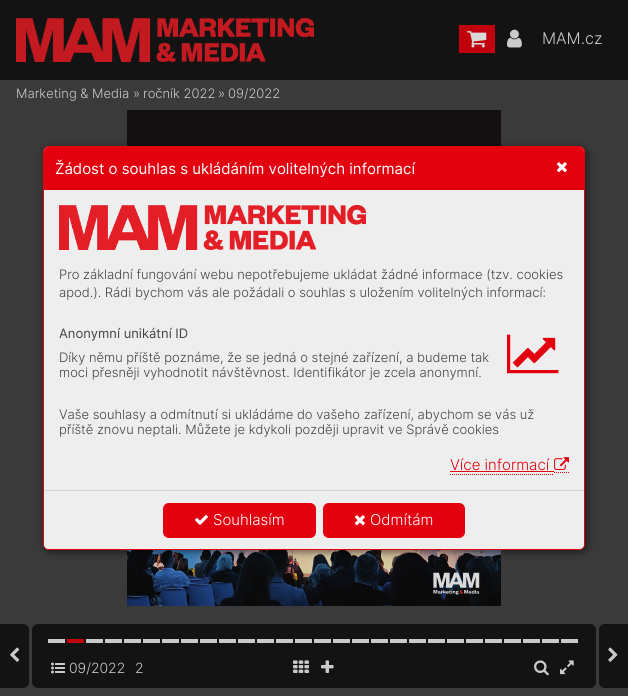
import math
import cairo

surface = cairo.ImageSurface(cairo.FORMAT_RGB24, 628, 696)
ctx = cairo.Context(surface)
options = cairo.FontOptions()
options.set_hint_metrics(cairo.HINT_METRICS_OFF)
options.set_hint_style(cairo.HINT_STYLE_NONE)
ctx.set_font_options(options)
ctx.set_miter_limit(4)


def round_rect(x, y, w, h, r):
    ctx.new_sub_path()
    for i, (u, v) in enumerate([(x + w - r, y + h - r), (x + r, y + h - r), (x + r, y + r), (x + w - r, y + r)]):
        ctx.arc(u, v, r, i * math.pi / 2, (i + 1) * math.pi / 2)
    ctx.close_path()


def shadow(x, y, w, h, r, blur, alpha):
    ctx.push_group_with_content(cairo.CONTENT_ALPHA)
    ctx.set_operator(cairo.OPERATOR_SOURCE)
    for i in range(15, -16, -2):
        e = blur * i / 6
        if min(w, h) + 2 * e > 0:
            ctx.set_source_rgba(0, 0, 0, alpha * math.erfc((i - 1) / 8.5) / 2)
            round_rect(x - e, y - e, w + 2 * e, h + 2 * e, max(0, min(r + e + blur * .6, min(w, h) / 2 + e)))
            ctx.fill()
    ctx.mask(ctx.pop_group())


def picture(path, x, y, w, h):
    ctx.save()
    ctx.set_source_surface(cairo.ImageSurface.create_from_png(path), x, y)
    ctx.rectangle(x, y, w, h)
    ctx.fill()
    ctx.restore()


ctx.set_source_rgb(0.227, 0.227, 0.227)
ctx.paint()
ctx.set_source_rgb(0.078, 0.078, 0.078)
ctx.rectangle(0, 0, 628, 80)
ctx.fill()
picture("img1.png", 16, 17, 298, 45)
ctx.set_source_rgb(0.757, 0, 0.051)
ctx.rectangle(459, 25, 36, 28)
ctx.fill()
picture("img2.png", 467, 31, 20, 17)
picture("img3.png", 507, 29, 15, 19)
ctx.select_font_face("Inter Light")
ctx.set_font_size(16)
ctx.set_source_rgb(0.792, 0.792, 0.792)
ctx.move_to(542, 44)
ctx.show_text("MAM.cz")
ctx.set_font_size(13)
ctx.move_to(16, 98)
ctx.show_text("Marketing & Media")
ctx.move_to(133, 98)
ctx.show_text("»")
ctx.move_to(143, 98)
ctx.show_text("ročník 2022")
ctx.move_to(218, 98)
ctx.show_text("»")
ctx.move_to(228, 98)
ctx.show_text("09/2022")
ctx.set_source_rgb(0.078, 0.078, 0.078)
ctx.new_path()
ctx.move_to(0, 624)
ctx.line_to(23, 624)
ctx.curve_to(26.5, 624, 29, 626.5, 29, 630)
ctx.line_to(29, 682)
ctx.curve_to(29, 685.5, 26.5, 688, 23, 688)
ctx.line_to(0, 688)
ctx.close_path()
ctx.fill()
picture("img4.png", 10, 647, 10, 15)
round_rect(32, 624, 564, 64, 6)
ctx.fill()
ctx.set_source_rgb(0.792, 0.792, 0.792)
ctx.rectangle(48, 639, 17, 4)
ctx.fill()
ctx.rectangle(86, 639, 17, 4)
ctx.fill()
ctx.rectangle(105, 639, 17, 4)
ctx.fill()
ctx.rectangle(124, 639, 17, 4)
ctx.fill()
ctx.rectangle(143, 639, 17, 4)
ctx.fill()
ctx.rectangle(162, 639, 17, 4)
ctx.fill()
ctx.rectangle(181, 639, 17, 4)
ctx.fill()
ctx.rectangle(200, 639, 17, 4)
ctx.fill()
ctx.rectangle(219, 639, 17, 4)
ctx.fill()
ctx.rectangle(238, 639, 17, 4)
ctx.fill()
ctx.rectangle(257, 639, 17, 4)
ctx.fill()
ctx.rectangle(276, 639, 17, 4)
ctx.fill()
ctx.rectangle(295, 639, 17, 4)
ctx.fill()
ctx.rectangle(314, 639, 17, 4)
ctx.fill()
ctx.rectangle(333, 639, 17, 4)
ctx.fill()
ctx.rectangle(352, 639, 17, 4)
ctx.fill()
ctx.rectangle(371, 639, 17, 4)
ctx.fill()
ctx.rectangle(390, 639, 17, 4)
ctx.fill()
ctx.rectangle(409, 639, 17, 4)
ctx.fill()
ctx.rectangle(428, 639, 17, 4)
ctx.fill()
ctx.rectangle(447, 639, 17, 4)
ctx.fill()
ctx.rectangle(466, 639, 17, 4)
ctx.fill()
ctx.rectangle(485, 639, 17, 4)
ctx.fill()
ctx.rectangle(504, 639, 17, 4)
ctx.fill()
ctx.rectangle(523, 639, 17, 4)
ctx.fill()
ctx.rectangle(542, 639, 17, 4)
ctx.fill()
ctx.rectangle(561, 639, 17, 4)
ctx.fill()
ctx.set_source_rgb(0.757, 0, 0.051)
ctx.rectangle(67, 639, 17, 4)
ctx.fill()
picture("img5.png", 51, 662, 14, 12)
ctx.set_font_size(14)
ctx.set_source_rgb(0.792, 0.792, 0.792)
ctx.move_to(69, 673)
ctx.show_text("09/2022")
ctx.move_to(135, 673)
ctx.show_text("2")
picture("img6.png", 293, 660, 16, 13)
picture("img7.png", 321, 660, 13, 13)
picture("img8.png", 534, 660, 15, 16)
picture("img9.png", 560, 660, 14, 15)
ctx.set_source_rgb(0.078, 0.078, 0.078)
ctx.new_path()
ctx.move_to(605, 624)
ctx.line_to(628, 624)
ctx.line_to(628, 688)
ctx.line_to(605, 688)
ctx.curve_to(601.5, 688, 599, 685.5, 599, 682)
ctx.line_to(599, 630)
ctx.curve_to(599, 626.5, 601.5, 624, 605, 624)
ctx.close_path()
ctx.fill()
picture("img10.png", 608, 647, 10, 15)
picture("img11.png", 127, 110, 374, 496)
ctx.set_source_rgb(0, 0, 0)
shadow(45, 148, 542, 404, 6, 4, 0.53)
ctx.set_source_rgb(0.933, 0.933, 0.933)
round_rect(43.5, 146.5, 541, 403, 5.5)
ctx.fill_preserve()
ctx.set_source_rgb(0.89, 0, 0.059)
ctx.set_line_width(1)
ctx.stroke()
ctx.new_path()
ctx.move_to(49, 147)
ctx.line_to(579, 147)
ctx.curve_to(582, 147, 584, 149, 584, 152)
ctx.line_to(584, 190)
ctx.line_to(44, 190)
ctx.line_to(44, 152)
ctx.curve_to(44, 149, 46, 147, 49, 147)
ctx.close_path()
ctx.fill()
ctx.select_font_face("Inter")
ctx.set_font_size(15)
ctx.set_source_rgb(1, 1, 1)
ctx.move_to(55, 174)
ctx.show_text("Žádost o souhlas s ukládáním volitelných informací")
picture("img12.png", 557, 162, 10, 11)
picture("img13.png", 59, 205, 307, 45)
ctx.select_font_face("Inter Light")
ctx.set_font_size(13)
ctx.set_source_rgb(0.267, 0.267, 0.267)
ctx.move_to(59, 279)
ctx.show_text("Pro základní fungování webu nepotřebujeme ukládat žádné informace (tzv. cookies")
ctx.move_to(59, 297)
ctx.show_text("apod.). Rádi bychom vás ale požádali o souhlas s uložením volitelných informací:")
ctx.select_font_face("Inter")
ctx.move_to(59, 338)
ctx.show_text("Anonymní unikátní ID")
picture("img14.png", 507, 334, 52, 40)
ctx.select_font_face("Inter Light")
ctx.move_to(59, 362)
ctx.show_text("Díky němu příště poznáme, že se jedná o stejné zařízení, a budeme tak")
ctx.move_to(59, 377)
ctx.show_text("moci přesněji vyhodnotit návštěvnost. Identifikátor je zcela anonymní.")
ctx.move_to(59, 419)
ctx.show_text("Vaše souhlasy a odmítnutí si ukládáme do vašeho zařízení, abychom se vás už")
ctx.move_to(59, 434)
ctx.show_text("příště znovu neptali. Můžete je kdykoli později upravit ve Správě cookies")
ctx.new_path()
ctx.move_to(450, 474.5)
ctx.line_to(554, 474.5)
ctx.set_source_rgb(0.89, 0, 0.059)
ctx.set_dash([1, 1])
ctx.stroke()
ctx.new_path()
ctx.move_to(554, 472.5)
ctx.line_to(569, 472.5)
ctx.stroke()
ctx.set_font_size(15)
ctx.move_to(450, 470)
ctx.show_text("Více informací")
ctx.rectangle(450, 471, 104, 1)
ctx.fill()
picture("img15.png", 554, 457, 15, 13)
ctx.set_source_rgb(0.933, 0.933, 0.933)
ctx.new_path()
ctx.move_to(44, 490)
ctx.line_to(584, 490)
ctx.line_to(584, 544)
ctx.curve_to(584, 547, 582, 549, 579, 549)
ctx.line_to(49, 549)
ctx.curve_to(46, 549, 44, 547, 44, 544)
ctx.close_path()
ctx.fill()
ctx.set_source_rgb(0.827, 0.827, 0.827)
ctx.rectangle(44, 490, 540, 1)
ctx.fill()
ctx.set_source_rgb(0.89, 0, 0.059)
round_rect(163.5, 503.5, 152, 34, 5.5)
ctx.fill_preserve()
ctx.set_dash([])
ctx.stroke()
picture("img16.png", 195, 515, 13, 10)
ctx.set_source_rgb(1, 1, 1)
ctx.move_to(213, 525)
ctx.show_text("Souhlasím")
ctx.set_source_rgb(0.89, 0, 0.059)
round_rect(323.5, 503.5, 141, 34, 5.5)
ctx.fill_preserve()
ctx.stroke()
picture("img12.png", 355, 515, 10, 11)
ctx.set_source_rgb(1, 1, 1)
ctx.move_to(370, 525)
ctx.show_text("Odmítám")
surface.write_to_png("page.png")
